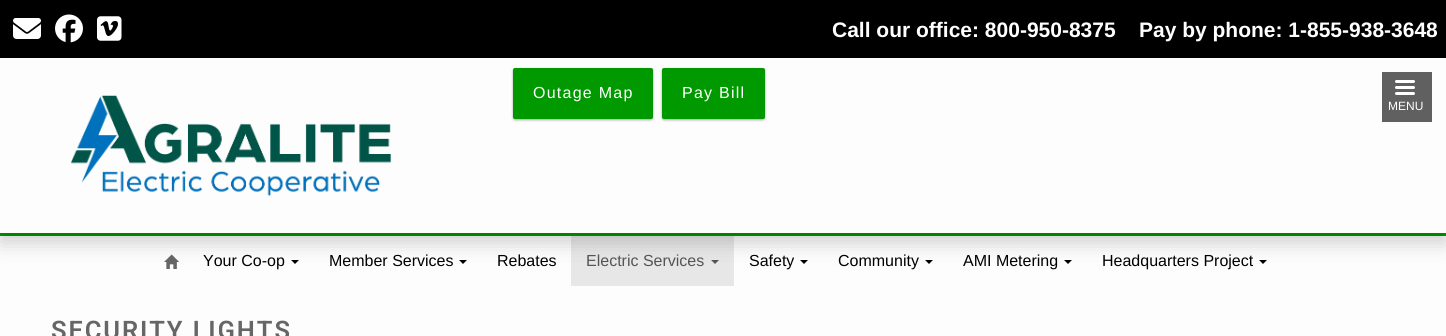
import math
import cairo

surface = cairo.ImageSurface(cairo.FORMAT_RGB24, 1446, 336)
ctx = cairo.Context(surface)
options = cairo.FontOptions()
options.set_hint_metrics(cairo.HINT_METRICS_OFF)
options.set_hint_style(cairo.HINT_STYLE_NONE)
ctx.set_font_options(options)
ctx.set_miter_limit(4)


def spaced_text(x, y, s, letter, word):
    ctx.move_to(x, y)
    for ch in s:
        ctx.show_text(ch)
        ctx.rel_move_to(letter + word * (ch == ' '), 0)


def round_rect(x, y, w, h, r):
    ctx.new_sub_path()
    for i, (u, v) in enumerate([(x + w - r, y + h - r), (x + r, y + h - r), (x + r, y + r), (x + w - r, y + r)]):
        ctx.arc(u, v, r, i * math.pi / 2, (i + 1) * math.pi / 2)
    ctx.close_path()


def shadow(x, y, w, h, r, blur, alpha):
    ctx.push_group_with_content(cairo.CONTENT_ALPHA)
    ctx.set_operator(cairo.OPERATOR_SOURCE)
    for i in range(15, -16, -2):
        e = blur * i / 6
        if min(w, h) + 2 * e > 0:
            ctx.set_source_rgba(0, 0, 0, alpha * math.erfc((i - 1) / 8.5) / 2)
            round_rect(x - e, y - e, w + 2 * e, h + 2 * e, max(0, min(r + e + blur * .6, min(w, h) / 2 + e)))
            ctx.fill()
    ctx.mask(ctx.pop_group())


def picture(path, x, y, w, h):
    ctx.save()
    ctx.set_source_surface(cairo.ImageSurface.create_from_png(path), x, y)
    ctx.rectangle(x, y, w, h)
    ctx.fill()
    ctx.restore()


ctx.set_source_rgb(0.992, 0.992, 0.992)
ctx.paint()
ctx.set_source_rgb(0, 0, 0)
ctx.rectangle(0, 0, 1446, 58)
ctx.fill()
picture("img1.png", 13, 18, 28, 21)
picture("img2.png", 55, 14, 28, 29)
picture("img3.png", 97, 16, 25, 25)
ctx.select_font_face("Liberation Sans", cairo.FONT_SLANT_NORMAL, cairo.FONT_WEIGHT_BOLD)
ctx.set_font_size(21)
ctx.set_source_rgb(1, 1, 1)
ctx.move_to(832, 37)
ctx.show_text("Call our office: 800-950-8375    Pay by phone: 1-855-938-3648")
ctx.set_source_rgb(0, 0.604, 0)
ctx.rectangle(0, 233, 1446, 3)
ctx.fill()
picture("img5.png", 164, 254, 15, 15)
ctx.set_source_rgb(0, 0, 0)
ctx.new_path()
ctx.move_to(291, 260)
ctx.line_to(299, 260)
ctx.line_to(295, 264)
ctx.close_path()
ctx.fill()
ctx.new_path()
ctx.move_to(459, 260)
ctx.line_to(467, 260)
ctx.line_to(463, 264)
ctx.close_path()
ctx.fill()
ctx.set_source_rgb(0.906, 0.906, 0.906)
ctx.rectangle(571, 236, 163, 50)
ctx.fill()
ctx.set_source_rgb(0.333, 0.333, 0.333)
ctx.new_path()
ctx.move_to(711, 260)
ctx.line_to(719, 260)
ctx.line_to(715, 264)
ctx.close_path()
ctx.fill()
ctx.set_source_rgb(0, 0, 0)
ctx.new_path()
ctx.move_to(800, 260)
ctx.line_to(808, 260)
ctx.line_to(804, 264)
ctx.close_path()
ctx.fill()
ctx.new_path()
ctx.move_to(925, 260)
ctx.line_to(933, 260)
ctx.line_to(929, 264)
ctx.close_path()
ctx.fill()
ctx.new_path()
ctx.move_to(1064, 260)
ctx.line_to(1072, 260)
ctx.line_to(1068, 264)
ctx.close_path()
ctx.fill()
ctx.new_path()
ctx.move_to(1259, 260)
ctx.line_to(1267, 260)
ctx.line_to(1263, 264)
ctx.close_path()
ctx.fill()
ctx.save()
ctx.set_fill_rule(cairo.FILL_RULE_EVEN_ODD)
ctx.new_path()
ctx.move_to(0, 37)
ctx.line_to(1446, 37)
ctx.line_to(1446, 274)
ctx.line_to(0, 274)
ctx.close_path()
ctx.move_to(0, 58)
ctx.line_to(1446, 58)
ctx.line_to(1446, 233)
ctx.line_to(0, 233)
ctx.close_path()
ctx.clip()
ctx.set_source_rgb(0, 0, 0)
shadow(0, 68, 1446, 175, 0, 10, 0.18)
ctx.restore()
picture("img4.png", 71, 95, 321, 101)
ctx.set_source_rgb(0, 0, 0)
shadow(513, 69, 140, 51, 2, 1, 0.24)
shadow(513, 69, 140, 51, 2, 1.5, 0.12)
ctx.set_source_rgb(0, 0.604, 0)
round_rect(513, 68, 140, 51, 2)
ctx.fill()
ctx.select_font_face("Liberation Sans")
ctx.set_font_size(16)
ctx.set_source_rgb(1, 1, 1)
spaced_text(533, 98, "Outage Map", 1.25, 0)
ctx.set_source_rgb(0, 0, 0)
shadow(662, 69, 103, 51, 2, 1, 0.24)
shadow(662, 69, 103, 51, 2, 1.5, 0.12)
ctx.set_source_rgb(0, 0.604, 0)
round_rect(662, 68, 103, 51, 2)
ctx.fill()
ctx.set_source_rgb(1, 1, 1)
spaced_text(682, 98, "Pay Bill", 1.25, 0)
ctx.set_source_rgb(0.376, 0.376, 0.376)
ctx.rectangle(1382, 72, 50, 50)
ctx.fill()
ctx.set_source_rgb(1, 1, 1)
round_rect(1395, 80, 20, 3, 1.5)
ctx.fill()
round_rect(1395, 86, 20, 3, 1.5)
ctx.fill()
round_rect(1395, 92, 20, 3, 1.5)
ctx.fill()
ctx.set_font_size(12)
ctx.move_to(1388, 110)
ctx.show_text("MENU")
ctx.set_font_size(16)
ctx.set_source_rgb(0, 0, 0)
ctx.move_to(203, 266)
ctx.show_text("Your Co-op")
ctx.move_to(329, 266)
ctx.show_text("Member Services")
ctx.move_to(497, 266)
ctx.show_text("Rebates")
ctx.set_source_rgb(0.333, 0.333, 0.333)
ctx.move_to(586, 266)
ctx.show_text("Electric Services")
ctx.set_source_rgb(0, 0, 0)
ctx.move_to(749, 266)
ctx.show_text("Safety")
ctx.move_to(838, 266)
ctx.show_text("Community")
ctx.move_to(963, 266)
ctx.show_text("AMI Metering")
ctx.move_to(1102, 266)
ctx.show_text("Headquarters Project")
ctx.select_font_face("Roboto SemiBold")
ctx.set_font_size(25.5)
ctx.set_source_rgb(0.4, 0.4, 0.4)
spaced_text(51, 339, "SECURITY LIGHTS", 1.9, 0)
surface.write_to_png("page.png")
